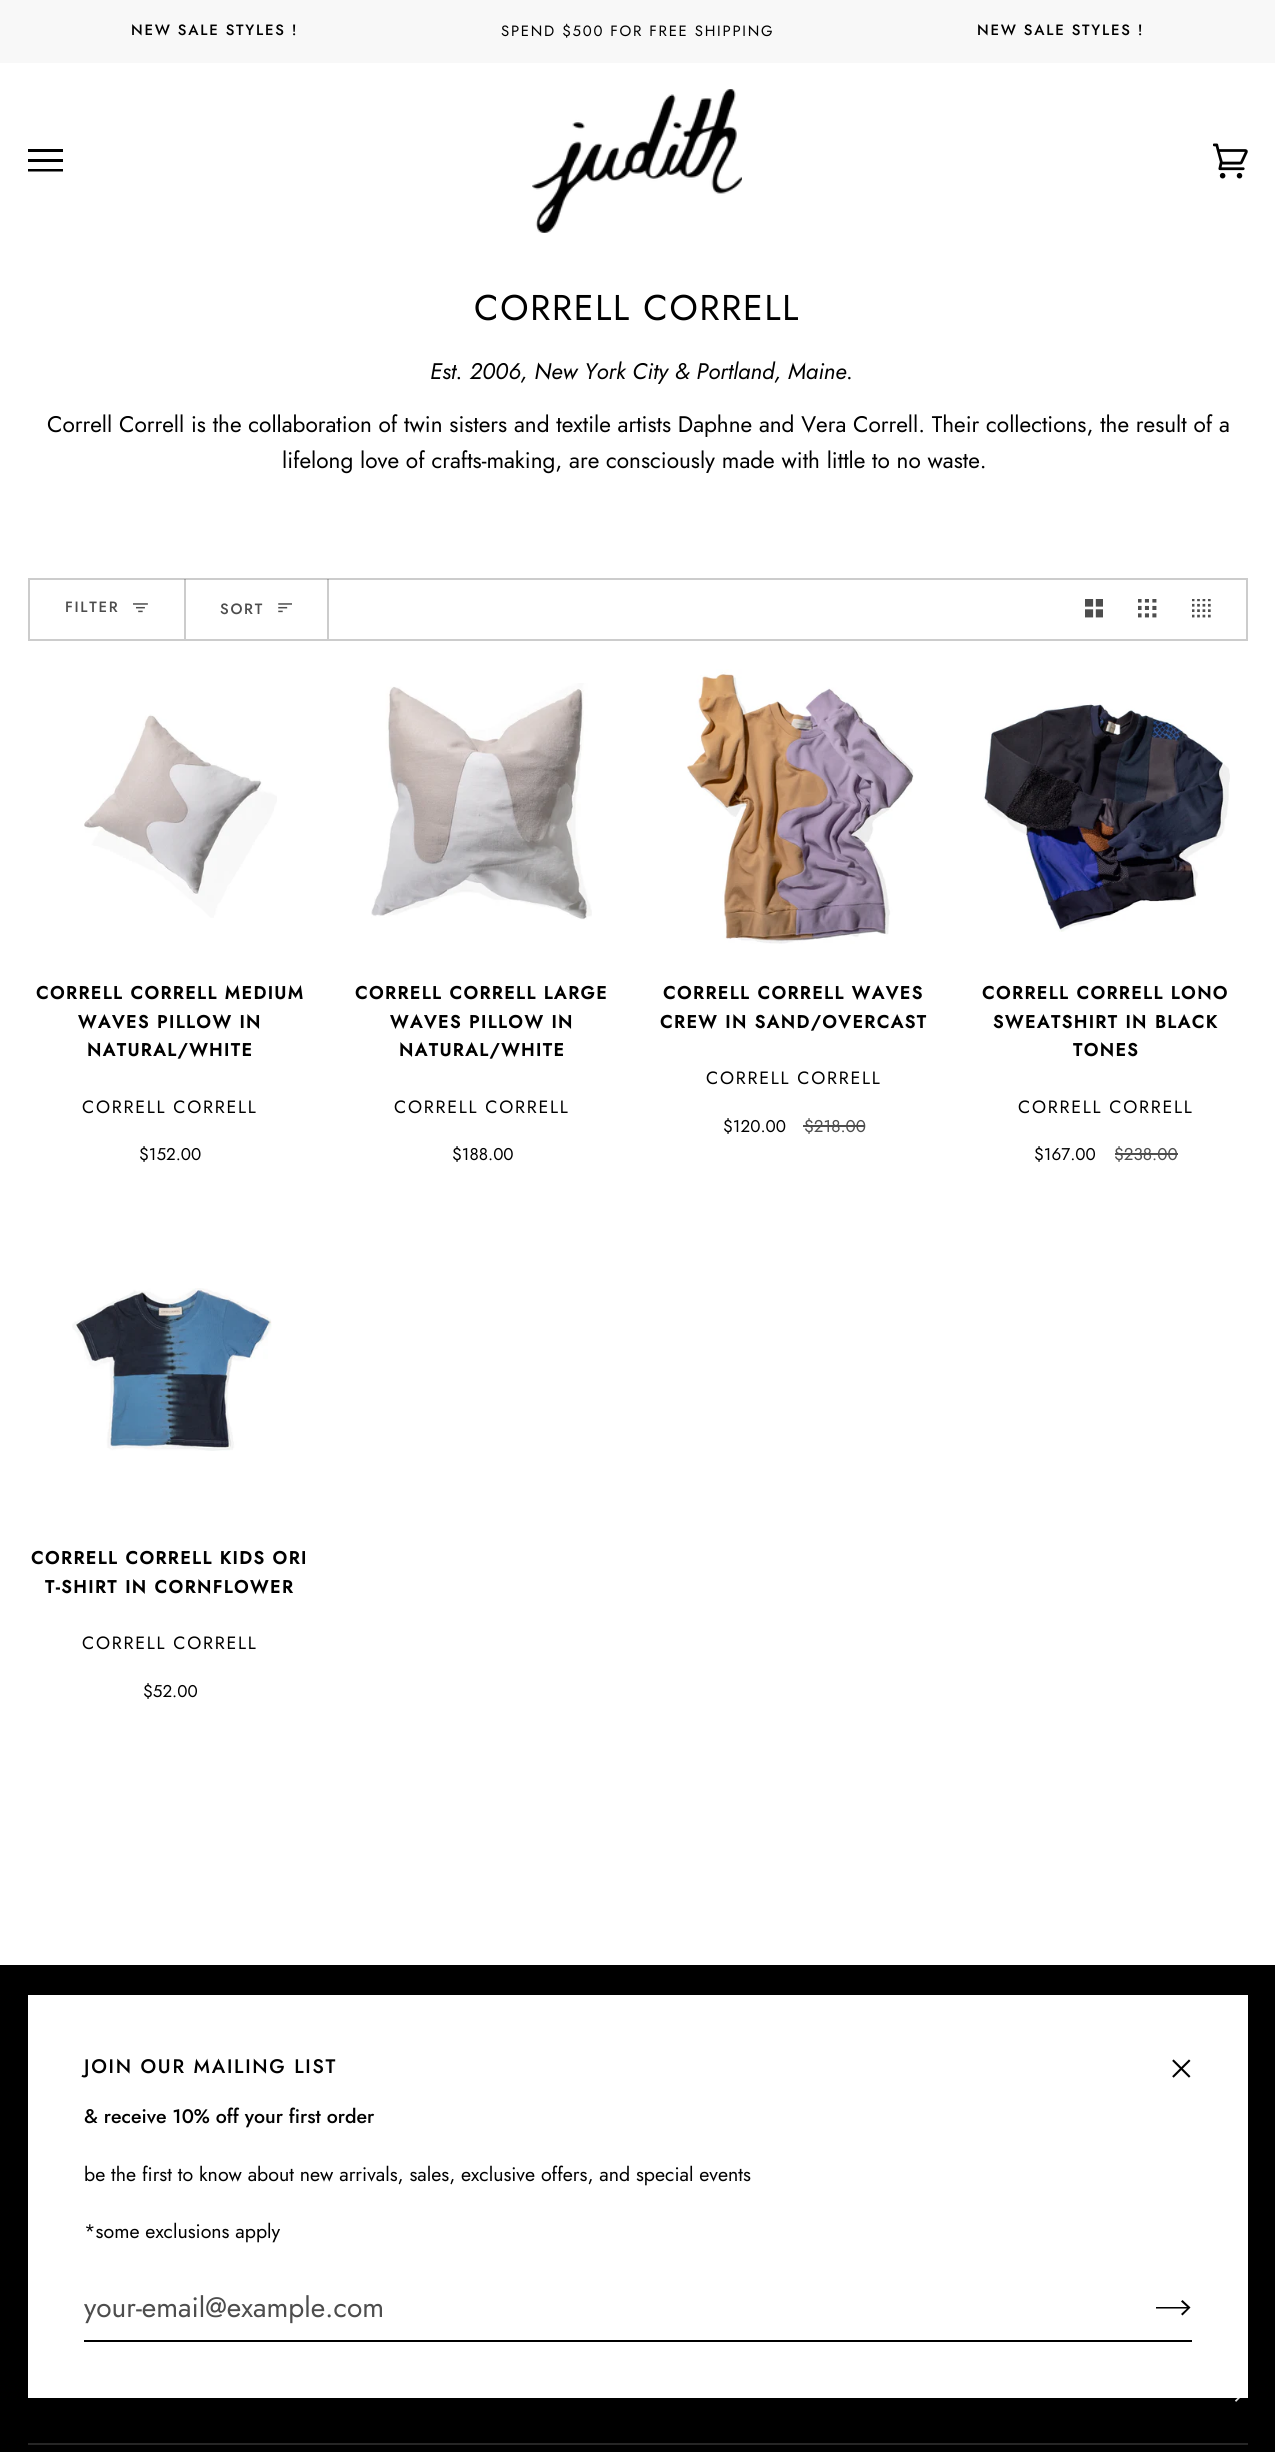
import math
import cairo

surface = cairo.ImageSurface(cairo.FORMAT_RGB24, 1275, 2452)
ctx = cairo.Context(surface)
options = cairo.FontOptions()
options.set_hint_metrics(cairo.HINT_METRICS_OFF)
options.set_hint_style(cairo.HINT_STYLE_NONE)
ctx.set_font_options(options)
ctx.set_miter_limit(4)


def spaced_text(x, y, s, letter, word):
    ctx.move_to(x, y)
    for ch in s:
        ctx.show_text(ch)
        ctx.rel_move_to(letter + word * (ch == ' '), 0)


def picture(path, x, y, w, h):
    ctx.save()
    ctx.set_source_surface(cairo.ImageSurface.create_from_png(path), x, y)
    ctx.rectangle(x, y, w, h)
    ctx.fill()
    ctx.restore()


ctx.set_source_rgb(1, 1, 1)
ctx.paint()
ctx.set_source_rgb(0.969, 0.969, 0.969)
ctx.rectangle(0, 0, 1275, 63)
ctx.fill()
ctx.select_font_face("Jost Medium")
ctx.set_font_size(14.9)
ctx.set_source_rgb(0, 0, 0)
spaced_text(131, 35, "NEW SALE STYLES !", 1.75, 0)
ctx.select_font_face("Jost")
spaced_text(501, 36, "SPEND $500 FOR FREE SHIPPING", 1.75, 0)
ctx.select_font_face("Jost Medium")
spaced_text(977, 35, "NEW SALE STYLES !", 1.75, 0)
ctx.new_path()
ctx.move_to(28, 149)
ctx.line_to(63, 149)
ctx.line_to(63, 152)
ctx.line_to(28, 152)
ctx.close_path()
ctx.move_to(28, 159)
ctx.line_to(63, 159)
ctx.line_to(63, 162)
ctx.line_to(28, 162)
ctx.close_path()
ctx.move_to(28, 169)
ctx.line_to(63, 169)
ctx.line_to(63, 171.5)
ctx.line_to(28, 171.5)
ctx.close_path()
ctx.fill()
picture("img1.png", 532, 89, 210, 144)
picture("img2.png", 1213, 143, 35, 36)
ctx.select_font_face("Jost")
ctx.set_font_size(35.75)
spaced_text(474, 320, "CORRELL CORRELL", 1.75, 0)
ctx.select_font_face("Jost", cairo.FONT_SLANT_ITALIC)
ctx.set_font_size(22.55)
ctx.move_to(430, 379)
ctx.show_text("Est. 2006, New York City & Portland, Maine.")
ctx.select_font_face("Jost")
ctx.move_to(47, 432)
ctx.show_text("Correll Correll is the collaboration of twin sisters and textile artists Daphne and Vera Correll. Their collections, the result of a")
ctx.move_to(282, 468)
ctx.show_text("lifelong love of crafts-making, are consciously made with little to no waste.")
ctx.rectangle(29, 579, 1218, 61)
ctx.set_source_rgb(0.8, 0.8, 0.8)
ctx.stroke()
ctx.set_source_rgba(0, 0, 0, 0.2)
ctx.rectangle(184, 579, 2, 60)
ctx.fill()
ctx.select_font_face("Jost Medium")
ctx.set_font_size(14.9)
ctx.set_source_rgb(0.302, 0.302, 0.302)
spaced_text(65, 612, "FILTER", 1.75, 0)
picture("img3.png", 133, 603, 15, 10)
ctx.set_source_rgba(0, 0, 0, 0.2)
ctx.rectangle(327, 579, 2, 60)
ctx.fill()
ctx.set_source_rgb(0.302, 0.302, 0.302)
spaced_text(220, 614, "SORT", 1.75, 0)
picture("img4.png", 278, 603, 14, 10)
picture("img5.png", 1085, 599, 18, 19)
picture("img6.png", 1138, 599, 19, 19)
picture("img7.png", 1192, 599, 19, 19)
picture("img8.png", 84, 714, 193, 204)
ctx.select_font_face("Jost", cairo.FONT_SLANT_NORMAL, cairo.FONT_WEIGHT_BOLD)
ctx.set_font_size(17.8)
ctx.set_source_rgb(0, 0, 0)
spaced_text(36, 999, "CORRELL CORRELL MEDIUM", 1.75, 0)
spaced_text(78, 1028, "WAVES PILLOW IN", 1.75, 0)
spaced_text(87, 1056, "NATURAL/WHITE", 1.75, 0)
ctx.select_font_face("Jost")
spaced_text(82, 1113, "CORRELL CORRELL", 1.75, 0)
ctx.set_font_size(17)
ctx.move_to(139, 1160)
ctx.show_text("$152.00")
picture("img9.png", 371, 683, 221, 237)
ctx.select_font_face("Jost", cairo.FONT_SLANT_NORMAL, cairo.FONT_WEIGHT_BOLD)
ctx.set_font_size(17.8)
spaced_text(355, 999, "CORRELL CORRELL LARGE", 1.75, 0)
spaced_text(390, 1028, "WAVES PILLOW IN", 1.75, 0)
spaced_text(399, 1056, "NATURAL/WHITE", 1.75, 0)
ctx.select_font_face("Jost")
spaced_text(394, 1113, "CORRELL CORRELL", 1.75, 0)
ctx.set_font_size(17)
ctx.move_to(452, 1160)
ctx.show_text("$188.00")
picture("img10.png", 687, 669, 227, 275)
ctx.select_font_face("Jost", cairo.FONT_SLANT_NORMAL, cairo.FONT_WEIGHT_BOLD)
ctx.set_font_size(17.8)
spaced_text(663, 999, "CORRELL CORRELL WAVES", 1.75, 0)
spaced_text(660, 1028, "CREW IN SAND/OVERCAST", 1.75, 0)
ctx.select_font_face("Jost")
spaced_text(706, 1084, "CORRELL CORRELL", 1.75, 0)
ctx.set_font_size(17)
ctx.move_to(723, 1132)
ctx.show_text("$120.00")
ctx.set_source_rgb(0.302, 0.302, 0.302)
ctx.move_to(804, 1132)
ctx.show_text("$218.00")
ctx.rectangle(803, 1125, 62, 2)
ctx.fill()
picture("img11.png", 983, 700, 247, 232)
ctx.select_font_face("Jost", cairo.FONT_SLANT_NORMAL, cairo.FONT_WEIGHT_BOLD)
ctx.set_font_size(17.8)
ctx.set_source_rgb(0, 0, 0)
spaced_text(982, 999, "CORRELL CORRELL LONO", 1.75, 0)
spaced_text(993, 1028, "SWEATSHIRT IN BLACK", 1.75, 0)
spaced_text(1073, 1056, "TONES", 1.75, 0)
ctx.select_font_face("Jost")
spaced_text(1018, 1113, "CORRELL CORRELL", 1.75, 0)
ctx.set_font_size(17)
ctx.move_to(1034, 1160)
ctx.show_text("$167.00")
ctx.set_source_rgb(0.302, 0.302, 0.302)
ctx.move_to(1114, 1160)
ctx.show_text("$238.00")
ctx.rectangle(1115, 1153, 63, 2)
ctx.fill()
picture("img12.png", 72, 1288, 200, 163)
ctx.select_font_face("Jost", cairo.FONT_SLANT_NORMAL, cairo.FONT_WEIGHT_BOLD)
ctx.set_font_size(17.8)
ctx.set_source_rgb(0, 0, 0)
spaced_text(31, 1564, "CORRELL CORRELL KIDS ORI", 1.75, 0)
spaced_text(45, 1593, "T-SHIRT IN CORNFLOWER", 1.75, 0)
ctx.select_font_face("Jost")
spaced_text(82, 1649, "CORRELL CORRELL", 1.75, 0)
ctx.set_font_size(17)
ctx.move_to(143, 1697)
ctx.show_text("$52.00")
ctx.rectangle(0, 1965, 1275, 487)
ctx.fill()
ctx.set_source_rgb(0.149, 0.149, 0.149)
ctx.rectangle(28, 2443, 1220, 2)
ctx.fill()
picture("img13.png", 1235, 2398, 5, 4)
ctx.set_source_rgb(1, 1, 1)
ctx.rectangle(28, 1995, 1220, 403)
ctx.fill()
ctx.select_font_face("Jost Medium")
ctx.set_font_size(19.55)
ctx.set_source_rgb(0, 0, 0)
spaced_text(84, 2073, "JOIN OUR MAILING LIST", 1.75, 0)
picture("img14.png", 1172, 2059, 19, 19)
ctx.move_to(84, 2123)
ctx.show_text("& receive 10% off your first order")
ctx.select_font_face("Jost")
ctx.move_to(84, 2181)
ctx.show_text("be the first to know about new arrivals, sales, exclusive offers, and special events")
ctx.move_to(84, 2238)
ctx.show_text("*some exclusions apply")
ctx.rectangle(84, 2340, 1108, 2)
ctx.fill()
ctx.set_font_size(28)
ctx.set_source_rgb(0.302, 0.302, 0.302)
ctx.move_to(84, 2317)
ctx.show_text("your-email@example.com")
ctx.set_source_rgb(0, 0, 0)
ctx.new_path()
ctx.move_to(1181, 2301.5)
ctx.line_to(1182.5, 2300)
ctx.line_to(1190.5, 2307.5)
ctx.line_to(1182.5, 2315.5)
ctx.line_to(1181, 2314)
ctx.line_to(1187, 2308.5)
ctx.line_to(1156, 2308.5)
ctx.line_to(1156, 2307)
ctx.line_to(1187, 2307)
ctx.close_path()
ctx.fill()
surface.write_to_png("page.png")
